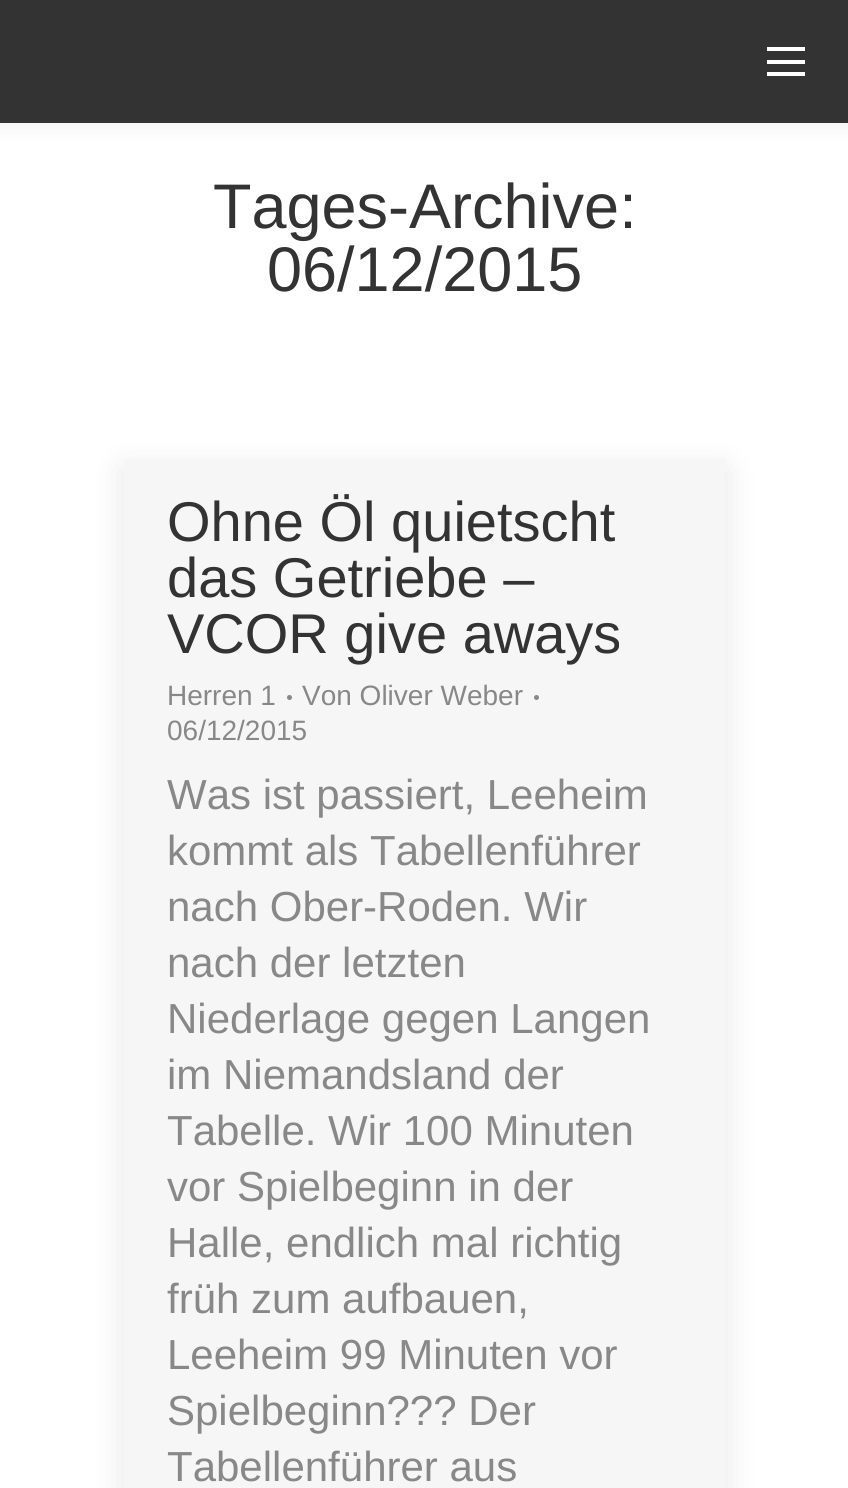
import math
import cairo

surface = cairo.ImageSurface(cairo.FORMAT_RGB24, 848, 1488)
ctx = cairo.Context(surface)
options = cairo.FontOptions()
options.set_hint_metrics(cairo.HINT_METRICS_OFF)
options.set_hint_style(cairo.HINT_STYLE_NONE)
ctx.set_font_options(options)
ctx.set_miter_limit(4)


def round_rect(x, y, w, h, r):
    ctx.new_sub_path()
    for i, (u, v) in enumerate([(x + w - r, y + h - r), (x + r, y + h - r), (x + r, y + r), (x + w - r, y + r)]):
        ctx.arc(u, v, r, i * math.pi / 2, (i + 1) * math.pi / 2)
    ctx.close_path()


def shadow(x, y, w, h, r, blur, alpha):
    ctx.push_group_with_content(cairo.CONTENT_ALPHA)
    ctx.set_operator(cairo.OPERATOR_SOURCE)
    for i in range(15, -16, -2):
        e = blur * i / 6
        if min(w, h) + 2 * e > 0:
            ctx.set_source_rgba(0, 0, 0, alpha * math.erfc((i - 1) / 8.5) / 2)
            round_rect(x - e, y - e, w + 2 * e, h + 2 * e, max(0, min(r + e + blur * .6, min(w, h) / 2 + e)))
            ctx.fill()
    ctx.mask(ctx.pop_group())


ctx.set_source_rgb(1, 1, 1)
ctx.paint()
ctx.set_source_rgb(0, 0, 0)
shadow(-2, -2, 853, 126, 0, 13, 0.07)
ctx.set_source_rgb(0.2, 0.2, 0.2)
ctx.rectangle(0, 0, 848, 123)
ctx.fill()
ctx.set_source_rgb(1, 1, 1)
ctx.rectangle(767, 47, 38, 4)
ctx.fill()
ctx.rectangle(767, 60, 38, 4)
ctx.fill()
ctx.rectangle(767, 72, 38, 4)
ctx.fill()
ctx.select_font_face("Liberation Sans")
ctx.set_font_size(63)
ctx.set_source_rgb(0.2, 0.2, 0.2)
ctx.move_to(213, 228)
ctx.show_text("Tages-Archive:")
ctx.move_to(267, 291)
ctx.show_text("06/12/2015")
ctx.set_source_rgb(0, 0, 0)
shadow(124, 469, 601, 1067, 0, 16, 0.1)
ctx.set_source_rgb(0.961, 0.961, 0.961)
ctx.rectangle(124, 459, 601, 1029)
ctx.fill()
ctx.set_font_size(56)
ctx.set_source_rgb(0.2, 0.2, 0.2)
ctx.move_to(167, 541)
ctx.show_text("Ohne Öl quietscht")
ctx.move_to(167, 597)
ctx.show_text("das Getriebe –")
ctx.move_to(167, 653)
ctx.show_text("VCOR give aways")
ctx.set_font_size(28)
ctx.set_source_rgb(0.533, 0.533, 0.533)
ctx.move_to(167, 705)
ctx.show_text("Herren 1")
ctx.new_path()
ctx.arc(289.5, 697.5, 2.5, 0, 2 * math.pi)
ctx.fill()
ctx.move_to(302, 705)
ctx.show_text("Von Oliver Weber")
ctx.new_path()
ctx.arc(536.5, 697.5, 2.5, 0, 2 * math.pi)
ctx.fill()
ctx.move_to(167, 740)
ctx.show_text("06/12/2015")
ctx.set_font_size(42)
ctx.move_to(167, 809)
ctx.show_text("Was ist passiert, Leeheim")
ctx.move_to(167, 865)
ctx.show_text("kommt als Tabellenführer")
ctx.move_to(167, 921)
ctx.show_text("nach Ober-Roden. Wir")
ctx.move_to(167, 977)
ctx.show_text("nach der letzten")
ctx.move_to(167, 1033)
ctx.show_text("Niederlage gegen Langen")
ctx.move_to(167, 1089)
ctx.show_text("im Niemandsland der")
ctx.move_to(167, 1145)
ctx.show_text("Tabelle. Wir 100 Minuten")
ctx.move_to(167, 1201)
ctx.show_text("vor Spielbeginn in der")
ctx.move_to(167, 1257)
ctx.show_text("Halle, endlich mal richtig")
ctx.move_to(167, 1313)
ctx.show_text("früh zum aufbauen,")
ctx.move_to(167, 1369)
ctx.show_text("Leeheim 99 Minuten vor")
ctx.move_to(167, 1425)
ctx.show_text("Spielbeginn??? Der")
ctx.move_to(167, 1481)
ctx.show_text("Tabellenführer aus")
surface.write_to_png("page.png")
